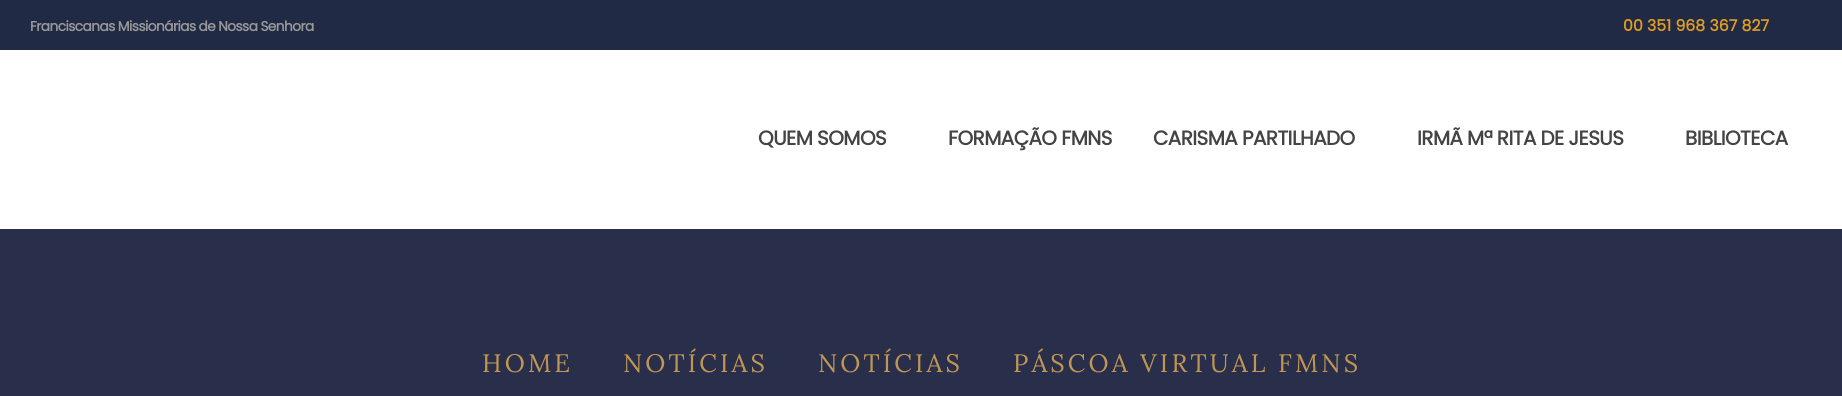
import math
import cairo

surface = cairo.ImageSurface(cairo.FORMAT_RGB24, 1842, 396)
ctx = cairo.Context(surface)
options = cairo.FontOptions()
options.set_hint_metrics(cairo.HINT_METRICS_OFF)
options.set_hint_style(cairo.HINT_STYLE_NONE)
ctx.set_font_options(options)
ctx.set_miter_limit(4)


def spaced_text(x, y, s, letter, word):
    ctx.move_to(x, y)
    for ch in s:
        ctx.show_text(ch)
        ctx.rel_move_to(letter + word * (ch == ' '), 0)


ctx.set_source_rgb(1, 1, 1)
ctx.paint()
ctx.set_source_rgb(0.125, 0.165, 0.267)
ctx.rectangle(0, 0, 1842, 50)
ctx.fill()
ctx.select_font_face("Poppins", cairo.FONT_SLANT_NORMAL, cairo.FONT_WEIGHT_BOLD)
ctx.set_font_size(13.75)
ctx.set_source_rgb(0.6, 0.6, 0.6)
spaced_text(30, 31, "Franciscanas Missionárias de Nossa Senhora", -0.6, 0)
ctx.set_font_size(15.75)
ctx.set_source_rgb(0.878, 0.608, 0.137)
ctx.move_to(1623, 31)
ctx.show_text("00 351 968 367 827")
ctx.set_font_size(20)
ctx.set_source_rgb(0.267, 0.267, 0.267)
spaced_text(758, 145, "QUEM SOMOS", -0.6, 0)
spaced_text(948, 145, "FORMAÇÃO FMNS", -0.6, 0)
spaced_text(1153, 145, "CARISMA PARTILHADO", -0.6, 0)
spaced_text(1417, 145, "IRMÃ Mª RITA DE JESUS", -0.6, 0)
spaced_text(1685, 145, "BIBLIOTECA", -0.6, 0)
ctx.set_source_rgb(0.161, 0.184, 0.29)
ctx.rectangle(0, 229, 1842, 167)
ctx.fill()
ctx.select_font_face("Lora")
ctx.set_font_size(25.25)
ctx.set_source_rgb(0.757, 0.588, 0.333)
spaced_text(482, 372, "HOME", 3.1, 0)
spaced_text(623, 372, "NOTÍCIAS", 3.1, 0)
spaced_text(818, 372, "NOTÍCIAS", 3.1, 0)
spaced_text(1013, 372, "PÁSCOA VIRTUAL FMNS", 3.1, 0)
surface.write_to_png("page.png")
